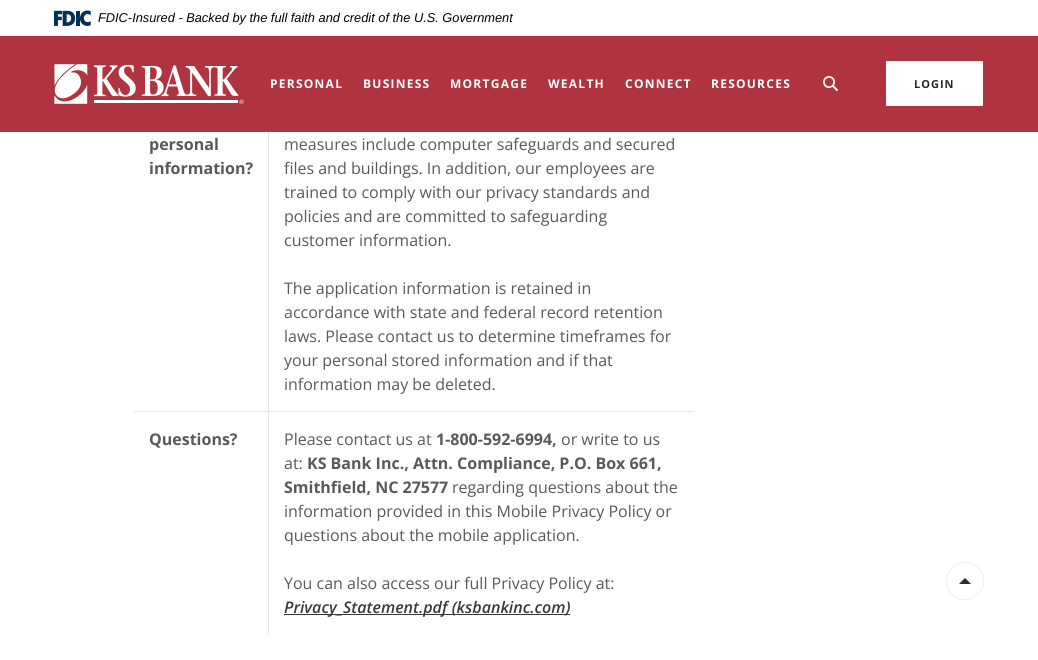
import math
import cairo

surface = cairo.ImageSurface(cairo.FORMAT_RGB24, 1038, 660)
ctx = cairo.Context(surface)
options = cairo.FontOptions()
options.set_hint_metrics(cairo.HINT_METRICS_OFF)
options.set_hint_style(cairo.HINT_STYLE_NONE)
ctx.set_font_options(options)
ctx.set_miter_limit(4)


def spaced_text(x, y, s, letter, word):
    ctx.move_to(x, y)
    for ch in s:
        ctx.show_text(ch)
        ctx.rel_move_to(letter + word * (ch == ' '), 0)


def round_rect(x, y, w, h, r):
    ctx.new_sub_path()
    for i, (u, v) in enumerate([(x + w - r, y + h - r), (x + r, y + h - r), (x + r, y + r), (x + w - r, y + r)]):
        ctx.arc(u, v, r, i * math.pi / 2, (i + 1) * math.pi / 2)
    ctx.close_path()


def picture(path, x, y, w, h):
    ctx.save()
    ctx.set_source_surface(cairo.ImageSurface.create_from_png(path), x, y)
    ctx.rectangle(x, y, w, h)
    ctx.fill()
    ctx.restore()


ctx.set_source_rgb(1, 1, 1)
ctx.paint()
ctx.set_source_rgb(0.686, 0.204, 0.247)
ctx.rectangle(0, 36, 1038, 96)
ctx.fill()
picture("img1.png", 54, 10, 37, 16)
ctx.select_font_face("Liberation Sans", cairo.FONT_SLANT_ITALIC)
ctx.set_font_size(12.8)
ctx.set_source_rgb(0, 0, 0)
ctx.move_to(98, 22)
ctx.show_text("FDIC-Insured - Backed by the full faith and credit of the U.S. Government")
picture("img2.png", 54, 64, 190, 40)
ctx.select_font_face("Open Sans", cairo.FONT_SLANT_NORMAL, cairo.FONT_WEIGHT_BOLD)
ctx.set_font_size(12)
ctx.set_source_rgb(1, 1, 1)
spaced_text(270, 88, "PERSONAL", 1.25, 0)
spaced_text(363, 88, "BUSINESS", 1.25, 0)
spaced_text(450, 88, "MORTGAGE", 1.25, 0)
spaced_text(548, 88, "WEALTH", 1.25, 0)
spaced_text(625, 88, "CONNECT", 1.25, 0)
spaced_text(711, 88, "RESOURCES", 1.25, 0)
picture("img3.png", 823, 76, 15, 15)
round_rect(885.5, 60.5, 98, 46, 1.5)
ctx.fill_preserve()
ctx.set_source_rgb(0.686, 0.204, 0.247)
ctx.set_line_width(1)
ctx.stroke()
ctx.set_font_size(11)
ctx.set_source_rgb(0.157, 0.157, 0.157)
spaced_text(914, 88, "LOGIN", 1, 0)
ctx.set_font_size(16)
ctx.set_source_rgb(0.349, 0.349, 0.349)
ctx.move_to(149, 150)
ctx.show_text("personal")
ctx.move_to(149, 174)
ctx.show_text("information?")
ctx.set_source_rgb(0.902, 0.902, 0.902)
ctx.rectangle(268, 411, 426, 1)
ctx.fill()
ctx.rectangle(268, 411, 1, 224)
ctx.fill()
ctx.rectangle(134, 411, 135, 1)
ctx.fill()
ctx.rectangle(268, 132, 1, 280)
ctx.fill()
ctx.select_font_face("Open Sans")
ctx.set_source_rgb(0.349, 0.349, 0.349)
ctx.move_to(284, 150)
ctx.show_text("measures include computer safeguards and secured")
ctx.move_to(284, 174)
ctx.show_text("files and buildings. In addition, our employees are")
ctx.move_to(284, 198)
ctx.show_text("trained to comply with our privacy standards and")
ctx.move_to(284, 222)
ctx.show_text("policies and are committed to safeguarding")
ctx.move_to(284, 246)
ctx.show_text("customer information.")
ctx.move_to(284, 294)
ctx.show_text("The application information is retained in")
ctx.move_to(284, 318)
ctx.show_text("accordance with state and federal record retention")
ctx.move_to(284, 342)
ctx.show_text("laws. Please contact us to determine timeframes for")
ctx.move_to(284, 366)
ctx.show_text("your personal stored information and if that")
ctx.move_to(284, 390)
ctx.show_text("information may be deleted.")
ctx.select_font_face("Open Sans", cairo.FONT_SLANT_NORMAL, cairo.FONT_WEIGHT_BOLD)
ctx.move_to(149, 445)
ctx.show_text("Questions?")
ctx.select_font_face("Open Sans")
ctx.move_to(284, 445)
ctx.show_text("Please contact us at")
ctx.select_font_face("Open Sans", cairo.FONT_SLANT_NORMAL, cairo.FONT_WEIGHT_BOLD)
ctx.move_to(436, 445)
ctx.show_text("1-800-592-6994,")
ctx.select_font_face("Open Sans")
ctx.move_to(561, 445)
ctx.show_text("or write to us")
ctx.move_to(284, 469)
ctx.show_text("at:")
ctx.select_font_face("Open Sans", cairo.FONT_SLANT_NORMAL, cairo.FONT_WEIGHT_BOLD)
ctx.move_to(307, 469)
ctx.show_text("KS Bank Inc., Attn. Compliance, P.O. Box 661,")
ctx.move_to(284, 493)
ctx.show_text("Smithfield, NC 27577")
ctx.select_font_face("Open Sans")
ctx.move_to(452, 493)
ctx.show_text("regarding questions about the")
ctx.move_to(284, 517)
ctx.show_text("information provided in this Mobile Privacy Policy or")
ctx.move_to(284, 541)
ctx.show_text("questions about the mobile application.")
ctx.move_to(284, 589)
ctx.show_text("You can also access our full Privacy Policy at:")
ctx.set_source_rgb(0.227, 0.227, 0.227)
ctx.rectangle(284, 614, 286, 1)
ctx.fill()
ctx.select_font_face("Open Sans SemiBold", cairo.FONT_SLANT_ITALIC)
ctx.move_to(284, 613)
ctx.show_text("Privacy_Statement.pdf (ksbankinc.com)")
ctx.new_path()
ctx.arc(965, 581, 18.5, 0, 2 * math.pi)
ctx.set_source_rgb(0.937, 0.937, 0.937)
ctx.stroke()
ctx.set_source_rgb(0.169, 0.169, 0.169)
ctx.new_path()
ctx.move_to(971, 584)
ctx.line_to(959, 584)
ctx.line_to(965, 578)
ctx.close_path()
ctx.fill()
surface.write_to_png("page.png")
